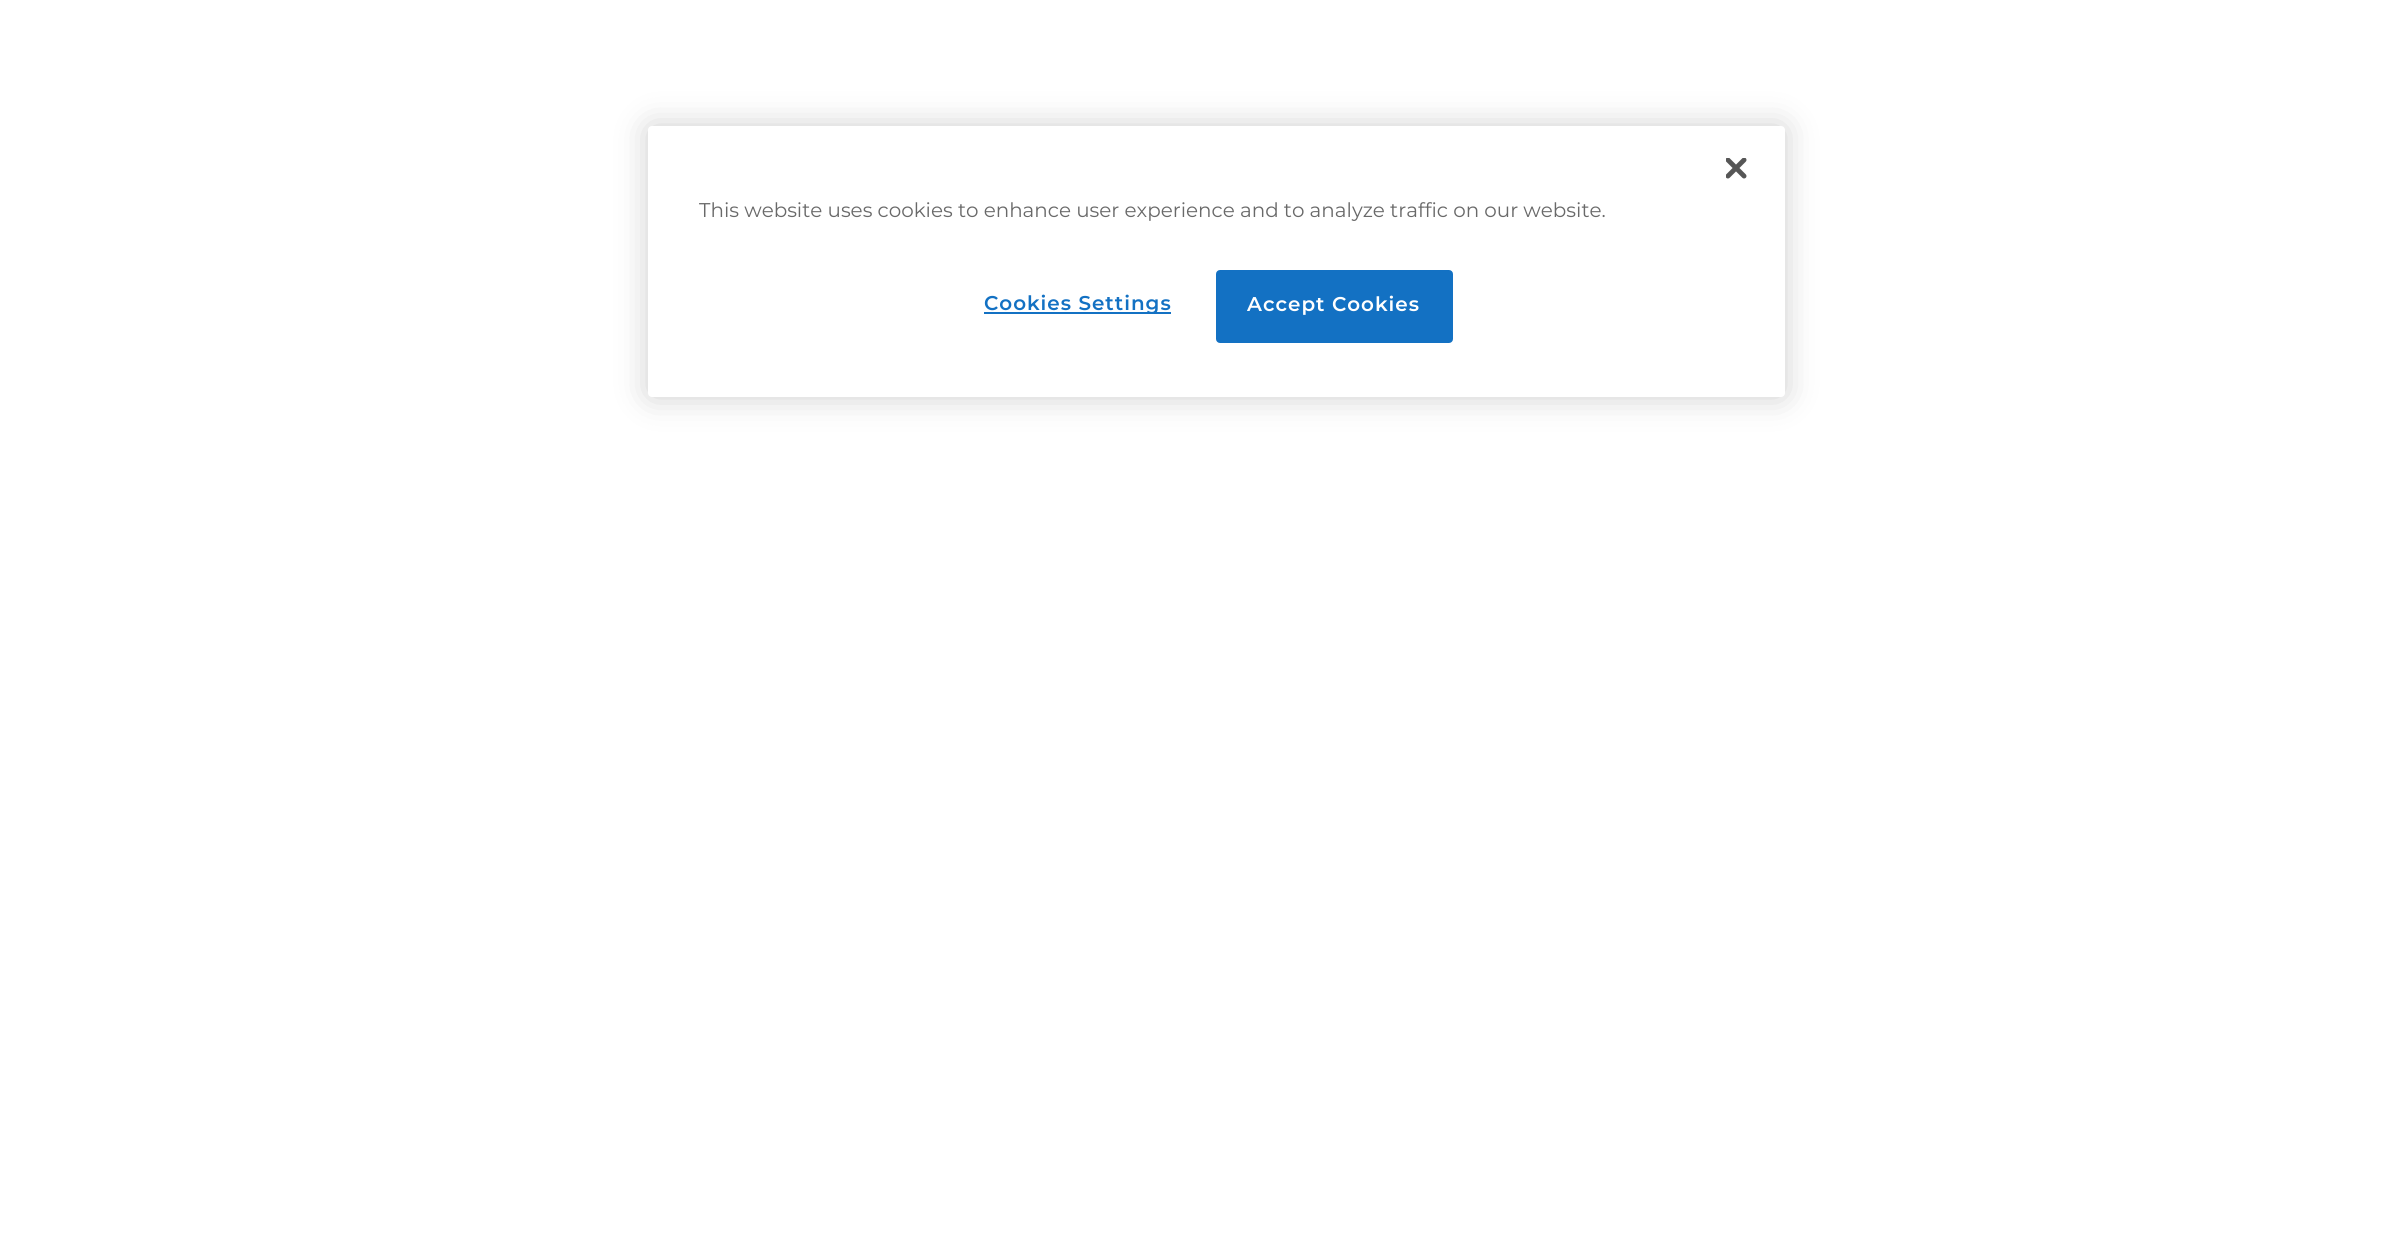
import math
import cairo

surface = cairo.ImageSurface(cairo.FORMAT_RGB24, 2406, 1258)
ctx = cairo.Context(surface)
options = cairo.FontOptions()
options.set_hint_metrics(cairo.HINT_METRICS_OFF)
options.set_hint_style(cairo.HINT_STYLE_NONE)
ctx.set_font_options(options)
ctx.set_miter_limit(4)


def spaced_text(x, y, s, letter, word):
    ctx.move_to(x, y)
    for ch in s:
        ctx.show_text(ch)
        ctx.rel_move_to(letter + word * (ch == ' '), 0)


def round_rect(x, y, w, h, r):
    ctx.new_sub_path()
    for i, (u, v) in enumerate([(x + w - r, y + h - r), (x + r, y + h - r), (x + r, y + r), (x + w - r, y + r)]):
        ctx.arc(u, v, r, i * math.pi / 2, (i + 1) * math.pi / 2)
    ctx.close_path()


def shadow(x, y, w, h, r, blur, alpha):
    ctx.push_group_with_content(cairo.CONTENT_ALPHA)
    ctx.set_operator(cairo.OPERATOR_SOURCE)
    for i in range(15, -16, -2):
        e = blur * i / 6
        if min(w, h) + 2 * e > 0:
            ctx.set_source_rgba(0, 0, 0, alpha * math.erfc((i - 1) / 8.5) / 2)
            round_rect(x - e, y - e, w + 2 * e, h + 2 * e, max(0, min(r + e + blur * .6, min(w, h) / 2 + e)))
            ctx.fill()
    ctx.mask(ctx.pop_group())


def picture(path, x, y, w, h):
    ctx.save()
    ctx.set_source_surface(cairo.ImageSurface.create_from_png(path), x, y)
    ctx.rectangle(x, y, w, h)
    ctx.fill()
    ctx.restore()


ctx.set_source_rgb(1, 1, 1)
ctx.paint()
ctx.set_source_rgb(0, 0, 0)
shadow(648, 126, 1137, 271, 4, 16, 0.2)
ctx.set_source_rgb(1, 1, 1)
round_rect(648, 126, 1137, 271, 4)
ctx.fill()
picture("img1.png", 1726, 158, 21, 21)
ctx.select_font_face("Montserrat")
ctx.set_font_size(19.9)
ctx.set_source_rgb(0.412, 0.412, 0.412)
ctx.move_to(699, 217)
ctx.show_text("This website uses cookies to enhance user experience and to analyze traffic on our website.")
ctx.set_source_rgb(0.075, 0.443, 0.765)
ctx.rectangle(984, 312, 187, 2)
ctx.fill()
ctx.select_font_face("Montserrat SemiBold")
spaced_text(984, 310, "Cookies Settings", 1, 0)
round_rect(1217, 271, 235, 71, 3)
ctx.fill_preserve()
ctx.stroke()
ctx.set_source_rgb(1, 1, 1)
spaced_text(1247, 311, "Accept Cookies", 1, 0)
surface.write_to_png("page.png")
